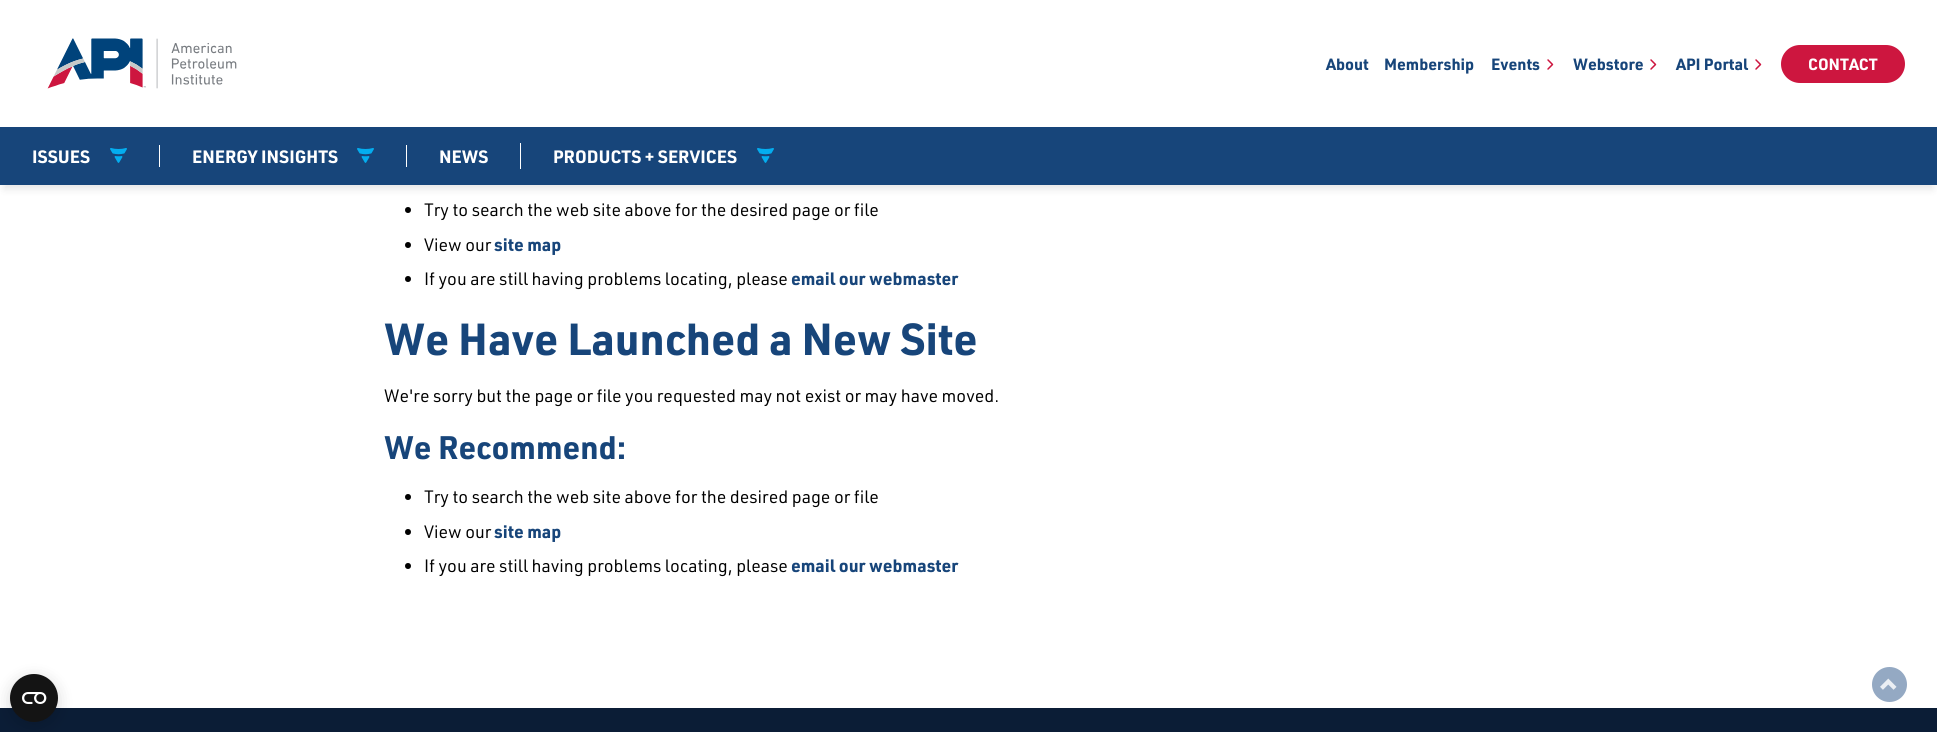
import math
import cairo

surface = cairo.ImageSurface(cairo.FORMAT_RGB24, 1937, 732)
ctx = cairo.Context(surface)
options = cairo.FontOptions()
options.set_hint_metrics(cairo.HINT_METRICS_OFF)
options.set_hint_style(cairo.HINT_STYLE_NONE)
ctx.set_font_options(options)
ctx.set_miter_limit(4)


def round_rect(x, y, w, h, r):
    ctx.new_sub_path()
    for i, (u, v) in enumerate([(x + w - r, y + h - r), (x + r, y + h - r), (x + r, y + r), (x + w - r, y + r)]):
        ctx.arc(u, v, r, i * math.pi / 2, (i + 1) * math.pi / 2)
    ctx.close_path()


def shadow(x, y, w, h, r, blur, alpha):
    ctx.push_group_with_content(cairo.CONTENT_ALPHA)
    ctx.set_operator(cairo.OPERATOR_SOURCE)
    for i in range(15, -16, -2):
        e = blur * i / 6
        if min(w, h) + 2 * e > 0:
            ctx.set_source_rgba(0, 0, 0, alpha * math.erfc((i - 1) / 8.5) / 2)
            round_rect(x - e, y - e, w + 2 * e, h + 2 * e, max(0, min(r + e + blur * .6, min(w, h) / 2 + e)))
            ctx.fill()
    ctx.mask(ctx.pop_group())


def picture(path, x, y, w, h):
    ctx.save()
    ctx.set_source_surface(cairo.ImageSurface.create_from_png(path), x, y)
    ctx.rectangle(x, y, w, h)
    ctx.fill()
    ctx.restore()


ctx.set_source_rgb(1, 1, 1)
ctx.paint()
picture("img1.png", 47, 38, 190, 51)
ctx.select_font_face("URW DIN", cairo.FONT_SLANT_NORMAL, cairo.FONT_WEIGHT_BOLD)
ctx.set_font_size(16)
ctx.set_source_rgb(0.09, 0.271, 0.478)
ctx.move_to(1326, 70)
ctx.show_text("About")
ctx.move_to(1384, 70)
ctx.show_text("Membership")
ctx.move_to(1491, 70)
ctx.show_text("Events")
picture("img2.png", 1547, 59, 7, 11)
ctx.move_to(1573, 70)
ctx.show_text("Webstore")
picture("img2.png", 1650, 59, 7, 11)
ctx.move_to(1676, 70)
ctx.show_text("API Portal")
picture("img2.png", 1755, 59, 7, 11)
ctx.set_source_rgb(0.804, 0.086, 0.247)
round_rect(1782, 46, 122, 36, 18)
ctx.fill_preserve()
ctx.stroke()
ctx.set_source_rgb(1, 1, 1)
ctx.move_to(1808, 70)
ctx.show_text("CONTACT")
ctx.set_source_rgb(0, 0, 0)
shadow(4, 139, 1929, 50, 0, 4, 0.1)
ctx.set_source_rgb(0.09, 0.271, 0.478)
ctx.rectangle(0, 127, 1937, 58)
ctx.fill()
ctx.set_source_rgb(1, 1, 1)
ctx.rectangle(159, 145, 1, 22)
ctx.fill()
ctx.set_font_size(17.6)
ctx.move_to(32, 163)
ctx.show_text("ISSUES")
picture("img3.png", 110, 148, 17, 15)
ctx.rectangle(406, 145, 1, 22)
ctx.fill()
ctx.move_to(192, 163)
ctx.show_text("ENERGY INSIGHTS")
picture("img3.png", 357, 148, 17, 15)
ctx.rectangle(520, 143, 1, 26)
ctx.fill()
ctx.move_to(439, 163)
ctx.show_text("NEWS")
ctx.move_to(553, 163)
ctx.show_text("PRODUCTS + SERVICES")
picture("img3.png", 757, 148, 17, 15)
ctx.set_source_rgb(0, 0, 0)
ctx.arc(408, 210, 3, 0, 2 * math.pi)
ctx.fill()
ctx.select_font_face("URW DIN")
ctx.move_to(424, 216)
ctx.show_text("Try to search the web site above for the desired page or file")
ctx.new_path()
ctx.arc(408, 245, 3, 0, 2 * math.pi)
ctx.fill()
ctx.move_to(424, 251)
ctx.show_text("View our")
ctx.select_font_face("URW DIN", cairo.FONT_SLANT_NORMAL, cairo.FONT_WEIGHT_BOLD)
ctx.set_source_rgb(0.09, 0.271, 0.478)
ctx.move_to(494, 251)
ctx.show_text("site map")
ctx.set_source_rgb(0, 0, 0)
ctx.new_path()
ctx.arc(408, 279, 3, 0, 2 * math.pi)
ctx.fill()
ctx.select_font_face("URW DIN")
ctx.move_to(424, 285)
ctx.show_text("If you are still having problems locating, please")
ctx.select_font_face("URW DIN", cairo.FONT_SLANT_NORMAL, cairo.FONT_WEIGHT_BOLD)
ctx.set_source_rgb(0.09, 0.271, 0.478)
ctx.move_to(791, 285)
ctx.show_text("email our webmaster")
ctx.set_font_size(44)
ctx.move_to(384, 355)
ctx.show_text("We Have Launched a New Site")
ctx.select_font_face("URW DIN")
ctx.set_font_size(17.6)
ctx.set_source_rgb(0, 0, 0)
ctx.move_to(384, 402)
ctx.show_text("We're sorry but the page or file you requested may not exist or may have moved.")
ctx.select_font_face("URW DIN", cairo.FONT_SLANT_NORMAL, cairo.FONT_WEIGHT_BOLD)
ctx.set_font_size(32)
ctx.set_source_rgb(0.09, 0.271, 0.478)
ctx.move_to(384, 459)
ctx.show_text("We Recommend:")
ctx.set_source_rgb(0, 0, 0)
ctx.new_path()
ctx.arc(408, 497, 3, 0, 2 * math.pi)
ctx.fill()
ctx.select_font_face("URW DIN")
ctx.set_font_size(17.6)
ctx.move_to(424, 503)
ctx.show_text("Try to search the web site above for the desired page or file")
ctx.new_path()
ctx.arc(408, 532, 3, 0, 2 * math.pi)
ctx.fill()
ctx.move_to(424, 538)
ctx.show_text("View our")
ctx.select_font_face("URW DIN", cairo.FONT_SLANT_NORMAL, cairo.FONT_WEIGHT_BOLD)
ctx.set_source_rgb(0.09, 0.271, 0.478)
ctx.move_to(494, 538)
ctx.show_text("site map")
ctx.set_source_rgb(0, 0, 0)
ctx.new_path()
ctx.arc(408, 566, 3, 0, 2 * math.pi)
ctx.fill()
ctx.select_font_face("URW DIN")
ctx.move_to(424, 572)
ctx.show_text("If you are still having problems locating, please")
ctx.select_font_face("URW DIN", cairo.FONT_SLANT_NORMAL, cairo.FONT_WEIGHT_BOLD)
ctx.set_source_rgb(0.09, 0.271, 0.478)
ctx.move_to(791, 572)
ctx.show_text("email our webmaster")
ctx.set_source_rgb(0.043, 0.114, 0.212)
ctx.rectangle(0, 708, 1937, 24)
ctx.fill()
ctx.set_source_rgb(0, 0, 0)
shadow(10, 678, 48, 48, 24, 8, 0.15)
picture("img4.png", 10, 674, 48, 48)
ctx.set_source_rgb(0.58, 0.663, 0.765)
ctx.arc(1889.5, 684.5, 17.5, 0, 2 * math.pi)
ctx.fill()
picture("img5.png", 1880, 678, 17, 12)
surface.write_to_png("page.png")
